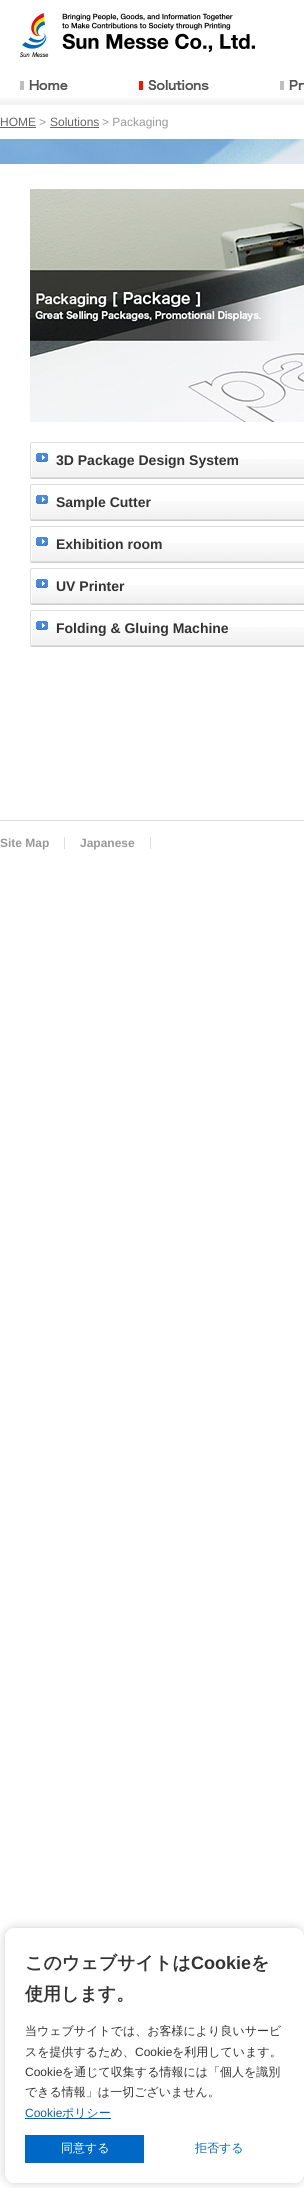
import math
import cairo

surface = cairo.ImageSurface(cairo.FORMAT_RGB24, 304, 2188)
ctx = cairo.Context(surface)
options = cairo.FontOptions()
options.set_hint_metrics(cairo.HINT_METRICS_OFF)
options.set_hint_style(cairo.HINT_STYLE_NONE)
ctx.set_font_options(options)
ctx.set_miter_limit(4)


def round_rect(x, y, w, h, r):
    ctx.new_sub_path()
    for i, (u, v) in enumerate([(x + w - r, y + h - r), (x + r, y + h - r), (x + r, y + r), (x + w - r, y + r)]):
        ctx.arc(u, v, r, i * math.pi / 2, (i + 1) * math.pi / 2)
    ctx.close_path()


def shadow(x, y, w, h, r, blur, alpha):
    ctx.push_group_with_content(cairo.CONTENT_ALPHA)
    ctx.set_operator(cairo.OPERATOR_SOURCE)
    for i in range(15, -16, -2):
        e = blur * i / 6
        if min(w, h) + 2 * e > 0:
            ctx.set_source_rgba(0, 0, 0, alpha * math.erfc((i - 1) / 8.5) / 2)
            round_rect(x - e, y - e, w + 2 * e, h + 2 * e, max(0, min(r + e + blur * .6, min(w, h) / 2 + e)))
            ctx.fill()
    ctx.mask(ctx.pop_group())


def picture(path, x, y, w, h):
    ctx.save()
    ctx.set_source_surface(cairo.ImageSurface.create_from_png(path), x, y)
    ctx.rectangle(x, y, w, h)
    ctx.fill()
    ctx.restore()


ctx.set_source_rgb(1, 1, 1)
ctx.paint()
picture("img1.png", 0, 98, 304, 7)
picture("img2.png", 20, 13, 235, 44)
picture("img3.png", 20, 80, 48, 10)
picture("img4.png", 139, 80, 70, 10)
picture("img5.png", 280, 80, 24, 10)
ctx.select_font_face("Liberation Sans")
ctx.set_font_size(12)
ctx.set_source_rgb(0.4, 0.4, 0.4)
ctx.move_to(0, 126)
ctx.show_text("HOME")
ctx.rectangle(0, 127, 36, 1)
ctx.fill()
ctx.set_source_rgb(0.6, 0.6, 0.6)
ctx.move_to(39, 126)
ctx.show_text(">")
ctx.set_source_rgb(0.4, 0.4, 0.4)
ctx.move_to(50, 126)
ctx.show_text("Solutions")
ctx.rectangle(50, 127, 49, 1)
ctx.fill()
ctx.set_source_rgb(0.6, 0.6, 0.6)
ctx.move_to(102, 126)
ctx.show_text("> Packaging")
picture("img6.png", 0, 139, 304, 25)
picture("img7.png", 30, 189, 274, 233)
ctx.set_source_rgb(0.8, 0.8, 0.8)
ctx.new_path()
ctx.move_to(30, 476)
ctx.curve_to(30, 477, 30, 479, 32, 479)
ctx.line_to(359, 479)
ctx.line_to(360, 478)
ctx.line_to(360, 476)
ctx.curve_to(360, 477, 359, 478, 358, 478)
ctx.line_to(32, 478)
ctx.curve_to(31, 478, 30, 477, 30, 476)
ctx.close_path()
ctx.fill()
ctx.set_source_rgb(1, 1, 1)
round_rect(30, 442, 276, 36, 2)
ctx.fill()
picture("img8.png", 30, 459, 274, 18)
ctx.new_path()
ctx.move_to(33, 444)
ctx.line_to(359, 444)
ctx.line_to(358, 443)
ctx.line_to(32, 443)
ctx.line_to(31, 444)
ctx.line_to(31, 476)
ctx.line_to(32, 477)
ctx.line_to(32, 445)
ctx.curve_to(32, 444, 32, 444, 33, 444)
ctx.close_path()
ctx.fill()
round_rect(30.5, 442.5, 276, 35, 1.5)
ctx.set_source_rgb(0.867, 0.867, 0.867)
ctx.set_line_width(1)
ctx.stroke()
picture("img9.png", 36, 453, 12, 9)
ctx.select_font_face("Liberation Sans", cairo.FONT_SLANT_NORMAL, cairo.FONT_WEIGHT_BOLD)
ctx.set_font_size(14)
ctx.set_source_rgb(0.2, 0.2, 0.2)
ctx.move_to(56, 465)
ctx.show_text("3D Package Design System")
ctx.set_source_rgb(0.8, 0.8, 0.8)
ctx.new_path()
ctx.move_to(30, 518)
ctx.curve_to(30, 519, 30, 521, 32, 521)
ctx.line_to(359, 521)
ctx.line_to(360, 520)
ctx.line_to(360, 518)
ctx.curve_to(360, 519, 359, 520, 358, 520)
ctx.line_to(32, 520)
ctx.curve_to(31, 520, 30, 519, 30, 518)
ctx.close_path()
ctx.fill()
ctx.set_source_rgb(1, 1, 1)
round_rect(30, 484, 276, 36, 2)
ctx.fill()
picture("img8.png", 30, 501, 274, 18)
ctx.new_path()
ctx.move_to(33, 486)
ctx.line_to(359, 486)
ctx.line_to(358, 485)
ctx.line_to(32, 485)
ctx.line_to(31, 486)
ctx.line_to(31, 518)
ctx.line_to(32, 519)
ctx.line_to(32, 487)
ctx.curve_to(32, 486, 32, 486, 33, 486)
ctx.close_path()
ctx.fill()
round_rect(30.5, 484.5, 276, 35, 1.5)
ctx.set_source_rgb(0.867, 0.867, 0.867)
ctx.stroke()
picture("img9.png", 36, 495, 12, 9)
ctx.set_source_rgb(0.2, 0.2, 0.2)
ctx.move_to(56, 507)
ctx.show_text("Sample Cutter")
ctx.set_source_rgb(0.8, 0.8, 0.8)
ctx.new_path()
ctx.move_to(30, 560)
ctx.curve_to(30, 561, 30, 563, 32, 563)
ctx.line_to(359, 563)
ctx.line_to(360, 562)
ctx.line_to(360, 560)
ctx.curve_to(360, 561, 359, 562, 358, 562)
ctx.line_to(32, 562)
ctx.curve_to(31, 562, 30, 561, 30, 560)
ctx.close_path()
ctx.fill()
ctx.set_source_rgb(1, 1, 1)
round_rect(30, 526, 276, 36, 2)
ctx.fill()
picture("img8.png", 30, 543, 274, 18)
ctx.new_path()
ctx.move_to(33, 528)
ctx.line_to(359, 528)
ctx.line_to(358, 527)
ctx.line_to(32, 527)
ctx.line_to(31, 528)
ctx.line_to(31, 560)
ctx.line_to(32, 561)
ctx.line_to(32, 529)
ctx.curve_to(32, 528, 32, 528, 33, 528)
ctx.close_path()
ctx.fill()
round_rect(30.5, 526.5, 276, 35, 1.5)
ctx.set_source_rgb(0.867, 0.867, 0.867)
ctx.stroke()
picture("img9.png", 36, 537, 12, 9)
ctx.set_source_rgb(0.2, 0.2, 0.2)
ctx.move_to(56, 549)
ctx.show_text("Exhibition room")
ctx.set_source_rgb(0.8, 0.8, 0.8)
ctx.new_path()
ctx.move_to(30, 602)
ctx.curve_to(30, 603, 30, 605, 32, 605)
ctx.line_to(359, 605)
ctx.line_to(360, 604)
ctx.line_to(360, 602)
ctx.curve_to(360, 603, 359, 604, 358, 604)
ctx.line_to(32, 604)
ctx.curve_to(31, 604, 30, 603, 30, 602)
ctx.close_path()
ctx.fill()
ctx.set_source_rgb(1, 1, 1)
round_rect(30, 568, 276, 36, 2)
ctx.fill()
picture("img8.png", 30, 585, 274, 18)
ctx.new_path()
ctx.move_to(33, 570)
ctx.line_to(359, 570)
ctx.line_to(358, 569)
ctx.line_to(32, 569)
ctx.line_to(31, 570)
ctx.line_to(31, 602)
ctx.line_to(32, 603)
ctx.line_to(32, 571)
ctx.curve_to(32, 570, 32, 570, 33, 570)
ctx.close_path()
ctx.fill()
round_rect(30.5, 568.5, 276, 35, 1.5)
ctx.set_source_rgb(0.867, 0.867, 0.867)
ctx.stroke()
picture("img9.png", 36, 579, 12, 9)
ctx.set_source_rgb(0.2, 0.2, 0.2)
ctx.move_to(56, 591)
ctx.show_text("UV Printer")
ctx.set_source_rgb(0.8, 0.8, 0.8)
ctx.new_path()
ctx.move_to(30, 644)
ctx.curve_to(30, 645, 30, 647, 32, 647)
ctx.line_to(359, 647)
ctx.line_to(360, 646)
ctx.line_to(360, 644)
ctx.curve_to(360, 645, 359, 646, 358, 646)
ctx.line_to(32, 646)
ctx.curve_to(31, 646, 30, 645, 30, 644)
ctx.close_path()
ctx.fill()
ctx.set_source_rgb(1, 1, 1)
round_rect(30, 610, 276, 36, 2)
ctx.fill()
picture("img8.png", 30, 627, 274, 18)
ctx.new_path()
ctx.move_to(33, 612)
ctx.line_to(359, 612)
ctx.line_to(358, 611)
ctx.line_to(32, 611)
ctx.line_to(31, 612)
ctx.line_to(31, 644)
ctx.line_to(32, 645)
ctx.line_to(32, 613)
ctx.curve_to(32, 612, 32, 612, 33, 612)
ctx.close_path()
ctx.fill()
round_rect(30.5, 610.5, 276, 35, 1.5)
ctx.set_source_rgb(0.867, 0.867, 0.867)
ctx.stroke()
picture("img9.png", 36, 621, 12, 9)
ctx.set_source_rgb(0.2, 0.2, 0.2)
ctx.move_to(56, 633)
ctx.show_text("Folding & Gluing Machine")
ctx.set_source_rgb(0.867, 0.867, 0.867)
ctx.rectangle(0, 820, 304, 1)
ctx.fill()
ctx.rectangle(64, 837, 1, 12)
ctx.fill()
ctx.set_font_size(12)
ctx.set_source_rgb(0.6, 0.6, 0.6)
ctx.move_to(0, 847)
ctx.show_text("Site Map")
ctx.set_source_rgb(0.867, 0.867, 0.867)
ctx.rectangle(150, 837, 1, 12)
ctx.fill()
ctx.set_source_rgb(0.6, 0.6, 0.6)
ctx.move_to(80, 847)
ctx.show_text("Japanese")
ctx.save()
ctx.set_fill_rule(cairo.FILL_RULE_EVEN_ODD)
ctx.new_path()
ctx.move_to(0, 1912)
ctx.line_to(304, 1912)
ctx.line_to(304, 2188)
ctx.line_to(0, 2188)
ctx.close_path()
ctx.move_to(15, 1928)
ctx.line_to(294, 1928)
ctx.curve_to(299.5, 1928, 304, 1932.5, 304, 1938)
ctx.line_to(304, 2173)
ctx.curve_to(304, 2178.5, 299.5, 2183, 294, 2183)
ctx.line_to(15, 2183)
ctx.curve_to(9.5, 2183, 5, 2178.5, 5, 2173)
ctx.line_to(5, 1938)
ctx.curve_to(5, 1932.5, 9.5, 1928, 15, 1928)
ctx.close_path()
ctx.clip()
ctx.set_source_rgb(0, 0, 0)
shadow(5, 1928, 299, 255, 10, 5, 0.2)
ctx.restore()
ctx.set_source_rgba(1, 1, 1, 0.95)
round_rect(5, 1928, 299, 255, 10)
ctx.fill()
ctx.select_font_face("WenQuanYi Zen Hei", cairo.FONT_SLANT_NORMAL, cairo.FONT_WEIGHT_BOLD)
ctx.set_font_size(18)
ctx.set_source_rgb(0.2, 0.2, 0.2)
ctx.move_to(25, 1969)
ctx.show_text("このウェブサイトは")
ctx.select_font_face("Liberation Sans", cairo.FONT_SLANT_NORMAL, cairo.FONT_WEIGHT_BOLD)
ctx.move_to(191, 1969)
ctx.show_text("Cookie")
ctx.select_font_face("WenQuanYi Zen Hei", cairo.FONT_SLANT_NORMAL, cairo.FONT_WEIGHT_BOLD)
ctx.move_to(251, 1969)
ctx.show_text("を")
ctx.move_to(25, 2000)
ctx.show_text("使用します。")
ctx.select_font_face("WenQuanYi Zen Hei Medium")
ctx.set_font_size(12)
ctx.move_to(25, 2035)
ctx.show_text("当ウェブサイトでは、お客様により良いサービ")
ctx.move_to(25, 2056)
ctx.show_text("スを提供するため、")
ctx.select_font_face("Liberation Sans")
ctx.move_to(135, 2056)
ctx.show_text("Cookie")
ctx.select_font_face("WenQuanYi Zen Hei Medium")
ctx.move_to(172, 2056)
ctx.show_text("を利用しています。")
ctx.select_font_face("Liberation Sans")
ctx.move_to(25, 2076)
ctx.show_text("Cookie")
ctx.select_font_face("WenQuanYi Zen Hei Medium")
ctx.move_to(62, 2076)
ctx.show_text("を通じて収集する情報には「個人を識別")
ctx.move_to(25, 2096)
ctx.show_text("できる情報」は一切ございません。")
ctx.select_font_face("Liberation Sans")
ctx.set_source_rgb(0.067, 0.365, 0.667)
ctx.move_to(25, 2117)
ctx.show_text("Cookie")
ctx.rectangle(25, 2118, 86, 1)
ctx.fill()
ctx.select_font_face("WenQuanYi Zen Hei Medium")
ctx.move_to(62, 2117)
ctx.show_text("ポリシー")
ctx.set_source_rgb(0, 0.408, 0.78)
ctx.rectangle(25, 2135, 119, 28)
ctx.fill()
ctx.set_source_rgb(1, 1, 1)
ctx.move_to(61, 2152)
ctx.show_text("同意する")
ctx.set_source_rgb(0, 0.408, 0.78)
ctx.move_to(195, 2152)
ctx.show_text("拒否する")
surface.write_to_png("page.png")
